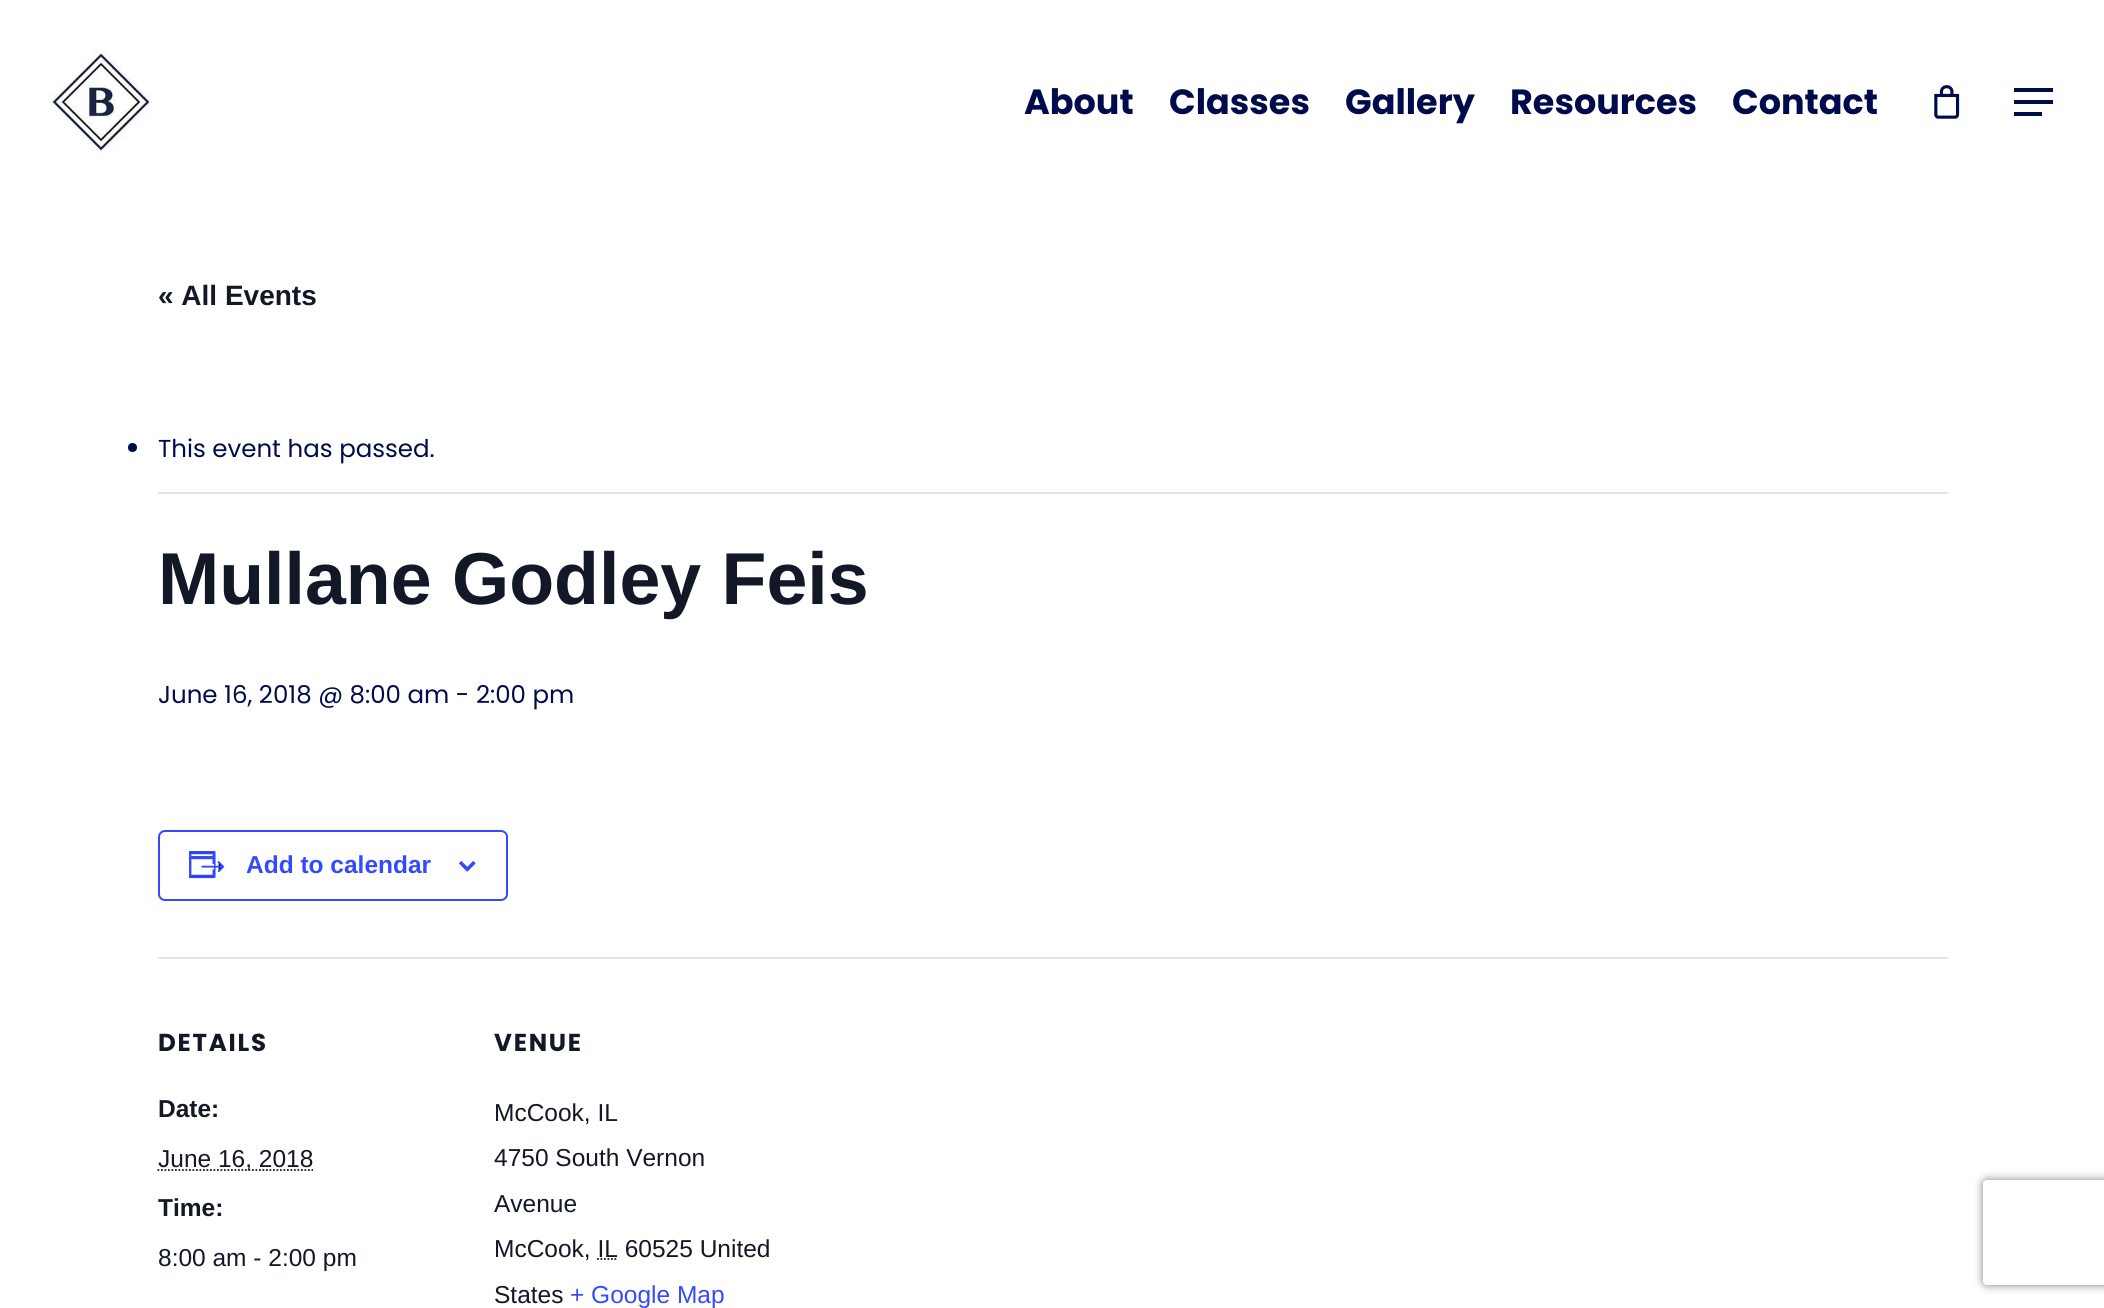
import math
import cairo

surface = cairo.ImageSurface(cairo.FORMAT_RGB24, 2104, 1308)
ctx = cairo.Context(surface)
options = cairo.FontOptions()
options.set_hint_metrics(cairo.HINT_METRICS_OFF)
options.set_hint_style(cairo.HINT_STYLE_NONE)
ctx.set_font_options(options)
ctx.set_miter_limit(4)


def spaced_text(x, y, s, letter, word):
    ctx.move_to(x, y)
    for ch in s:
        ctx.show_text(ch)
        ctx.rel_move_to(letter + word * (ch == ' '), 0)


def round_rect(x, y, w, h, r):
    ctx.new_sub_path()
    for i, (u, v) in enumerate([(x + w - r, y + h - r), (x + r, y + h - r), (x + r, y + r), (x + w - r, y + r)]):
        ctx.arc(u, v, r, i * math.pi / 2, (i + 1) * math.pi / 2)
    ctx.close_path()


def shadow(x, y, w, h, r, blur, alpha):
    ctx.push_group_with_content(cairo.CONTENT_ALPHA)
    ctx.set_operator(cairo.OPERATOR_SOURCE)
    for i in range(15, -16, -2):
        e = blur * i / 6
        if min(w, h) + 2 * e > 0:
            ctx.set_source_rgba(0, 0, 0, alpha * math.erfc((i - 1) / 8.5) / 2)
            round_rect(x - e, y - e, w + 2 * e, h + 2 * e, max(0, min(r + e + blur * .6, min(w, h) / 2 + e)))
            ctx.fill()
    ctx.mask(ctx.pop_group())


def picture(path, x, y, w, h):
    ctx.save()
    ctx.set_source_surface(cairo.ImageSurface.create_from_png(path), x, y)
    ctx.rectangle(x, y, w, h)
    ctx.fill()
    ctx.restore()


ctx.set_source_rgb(1, 1, 1)
ctx.paint()
picture("img1.png", 49, 49, 101, 105)
ctx.select_font_face("Poppins", cairo.FONT_SLANT_NORMAL, cairo.FONT_WEIGHT_BOLD)
ctx.set_font_size(35)
ctx.set_source_rgb(0, 0.043, 0.298)
ctx.move_to(1024, 114)
ctx.show_text("About")
ctx.move_to(1169, 114)
ctx.show_text("Classes")
ctx.move_to(1345, 114)
ctx.show_text("Gallery")
ctx.move_to(1510, 114)
ctx.show_text("Resources")
ctx.move_to(1732, 114)
ctx.show_text("Contact")
picture("img2.png", 1934, 85, 26, 34)
ctx.rectangle(2014, 88, 39, 4)
ctx.fill()
ctx.rectangle(2014, 112, 28, 4)
ctx.fill()
ctx.rectangle(2014, 100, 39, 4)
ctx.fill()
ctx.select_font_face("Liberation Sans", cairo.FONT_SLANT_NORMAL, cairo.FONT_WEIGHT_BOLD)
ctx.set_font_size(28)
ctx.set_source_rgb(0.078, 0.094, 0.153)
ctx.move_to(158, 305)
ctx.show_text("« All Events")
ctx.set_source_rgb(0.894, 0.894, 0.894)
ctx.rectangle(158, 492, 1790, 2)
ctx.fill()
ctx.set_source_rgb(0, 0.043, 0.298)
ctx.arc(132.5, 447.5, 4.5, 0, 2 * math.pi)
ctx.fill()
ctx.select_font_face("Poppins")
ctx.set_font_size(24.5)
ctx.move_to(158, 457)
ctx.show_text("This event has passed.")
ctx.select_font_face("Liberation Sans", cairo.FONT_SLANT_NORMAL, cairo.FONT_WEIGHT_BOLD)
ctx.set_font_size(73.5)
ctx.set_source_rgb(0.078, 0.094, 0.153)
ctx.move_to(158, 604)
ctx.show_text("Mullane Godley Feis")
ctx.select_font_face("Poppins")
ctx.set_font_size(24.5)
ctx.set_source_rgb(0, 0.043, 0.298)
ctx.move_to(158, 703)
ctx.show_text("June 16, 2018 @ 8:00 am - 2:00 pm")
round_rect(159, 831, 348, 69, 6)
ctx.set_source_rgb(0.2, 0.29, 1)
ctx.stroke()
picture("img3.png", 189, 851, 36, 28)
ctx.select_font_face("Liberation Sans", cairo.FONT_SLANT_NORMAL, cairo.FONT_WEIGHT_BOLD)
ctx.move_to(246, 873)
ctx.show_text("Add to calendar")
picture("img4.png", 459, 861, 17, 11)
ctx.set_source_rgb(0.894, 0.894, 0.894)
ctx.rectangle(158, 957, 1790, 2)
ctx.fill()
ctx.select_font_face("Poppins", cairo.FONT_SLANT_NORMAL, cairo.FONT_WEIGHT_BOLD)
ctx.set_source_rgb(0.078, 0.094, 0.153)
spaced_text(158, 1051, "DETAILS", 1.75, 0)
ctx.select_font_face("Liberation Sans", cairo.FONT_SLANT_NORMAL, cairo.FONT_WEIGHT_BOLD)
ctx.move_to(158, 1117)
ctx.show_text("Date:")
ctx.new_path()
ctx.move_to(157.5, 1170)
ctx.line_to(313, 1170)
ctx.set_line_width(1.8)
ctx.set_dash([1.75, 1.75])
ctx.stroke()
ctx.select_font_face("Liberation Sans")
ctx.move_to(158, 1167)
ctx.show_text("June 16, 2018")
ctx.save()
ctx.rectangle(158, 774, 1790, 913)
ctx.clip()
ctx.select_font_face("Liberation Sans", cairo.FONT_SLANT_NORMAL, cairo.FONT_WEIGHT_BOLD)
ctx.move_to(158, 1216)
ctx.show_text("Time:")
ctx.restore()
ctx.move_to(158, 1266)
ctx.show_text("8:00 am - 2:00 pm")
ctx.select_font_face("Poppins", cairo.FONT_SLANT_NORMAL, cairo.FONT_WEIGHT_BOLD)
spaced_text(494, 1051, "VENUE", 1.75, 0)
ctx.select_font_face("Liberation Sans")
ctx.move_to(494, 1121)
ctx.show_text("McCook, IL")
ctx.move_to(494, 1166)
ctx.show_text("4750 South Vernon")
ctx.move_to(494, 1212)
ctx.show_text("Avenue")
ctx.move_to(494, 1257)
ctx.show_text("McCook, IL 60525 United")
ctx.new_path()
ctx.move_to(597, 1259)
ctx.line_to(617.5, 1259)
ctx.stroke()
ctx.move_to(494, 1303)
ctx.show_text("States")
ctx.set_source_rgb(0.2, 0.29, 1)
ctx.move_to(570, 1303)
ctx.show_text("+ Google Map")
ctx.save()
ctx.set_fill_rule(cairo.FILL_RULE_EVEN_ODD)
ctx.new_path()
ctx.move_to(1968, 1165)
ctx.line_to(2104, 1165)
ctx.line_to(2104, 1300)
ctx.line_to(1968, 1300)
ctx.close_path()
ctx.move_to(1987, 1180)
ctx.line_to(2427, 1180)
ctx.curve_to(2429, 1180, 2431, 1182, 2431, 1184)
ctx.line_to(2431, 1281)
ctx.curve_to(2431, 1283, 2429, 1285, 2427, 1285)
ctx.line_to(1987, 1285)
ctx.curve_to(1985, 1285, 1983, 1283, 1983, 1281)
ctx.line_to(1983, 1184)
ctx.curve_to(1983, 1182, 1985, 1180, 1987, 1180)
ctx.close_path()
ctx.clip()
ctx.set_source_rgb(0.502, 0.502, 0.502)
shadow(1983, 1180, 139, 105, 4, 4.5, 1)
ctx.restore()
surface.write_to_png("page.png")
